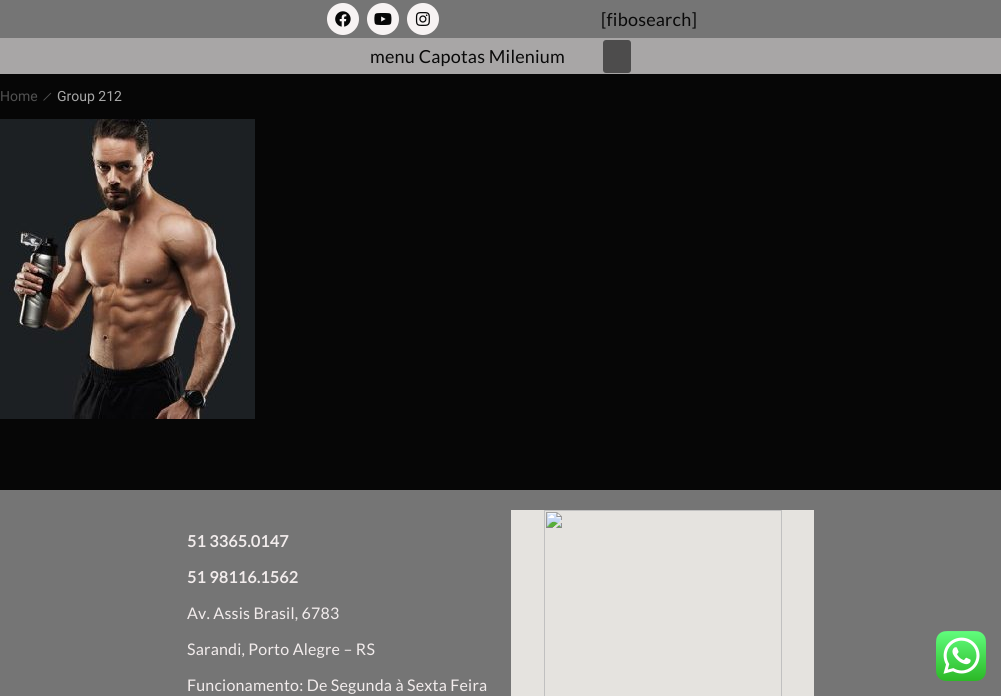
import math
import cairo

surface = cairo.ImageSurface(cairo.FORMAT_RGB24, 1001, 696)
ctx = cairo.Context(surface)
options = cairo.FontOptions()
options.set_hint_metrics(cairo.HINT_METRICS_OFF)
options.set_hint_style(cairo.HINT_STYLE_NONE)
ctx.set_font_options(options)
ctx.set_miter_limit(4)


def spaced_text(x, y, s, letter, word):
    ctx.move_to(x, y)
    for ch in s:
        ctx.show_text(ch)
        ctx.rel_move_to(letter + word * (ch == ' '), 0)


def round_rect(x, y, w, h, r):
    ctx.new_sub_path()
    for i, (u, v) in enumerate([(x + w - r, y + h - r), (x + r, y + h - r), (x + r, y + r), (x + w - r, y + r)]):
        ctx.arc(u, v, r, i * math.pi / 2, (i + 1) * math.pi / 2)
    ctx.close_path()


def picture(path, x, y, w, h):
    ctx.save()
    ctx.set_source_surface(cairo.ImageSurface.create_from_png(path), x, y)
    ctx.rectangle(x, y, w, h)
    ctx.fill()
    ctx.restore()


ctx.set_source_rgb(0.024, 0.024, 0.024)
ctx.paint()
ctx.set_source_rgb(0.459, 0.459, 0.459)
ctx.rectangle(0, 0, 1001, 38)
ctx.fill()
ctx.set_source_rgb(0.965, 0.953, 0.953)
ctx.arc(343, 19, 16, 0, 2 * math.pi)
ctx.fill()
picture("img1.png", 335, 11, 16, 16)
ctx.arc(383, 19, 16, 0, 2 * math.pi)
ctx.fill()
picture("img2.png", 374, 13, 18, 12)
ctx.arc(423, 19, 16, 0, 2 * math.pi)
ctx.fill()
picture("img3.png", 415, 12, 15, 14)
ctx.select_font_face("Lato")
ctx.set_font_size(18)
ctx.set_source_rgb(0.039, 0.039, 0.039)
spaced_text(601, 26, "[fibosearch]", 0.2, 0)
ctx.set_source_rgb(0.659, 0.651, 0.651)
ctx.rectangle(0, 38, 1001, 36)
ctx.fill()
ctx.set_source_rgb(0.039, 0.039, 0.039)
spaced_text(370, 63, "menu Capotas Milenium", 0.2, 0)
ctx.set_source_rgb(0.302, 0.298, 0.298)
round_rect(603, 40, 28, 33, 3)
ctx.fill()
ctx.select_font_face("Roboto")
ctx.set_font_size(14)
ctx.set_source_rgb(0.318, 0.318, 0.318)
ctx.move_to(0, 101)
ctx.show_text("Home")
ctx.new_path()
ctx.move_to(51, 93)
ctx.line_to(43.5, 100.5)
ctx.set_line_width(0.9)
ctx.stroke()
ctx.set_source_rgb(0.659, 0.659, 0.659)
ctx.move_to(57, 101)
ctx.show_text("Group 212")
picture("img4.png", 0, 119, 255, 300)
ctx.set_source_rgb(0.459, 0.459, 0.459)
ctx.rectangle(0, 490, 1001, 206)
ctx.fill()
ctx.select_font_face("Lato", cairo.FONT_SLANT_NORMAL, cairo.FONT_WEIGHT_BOLD)
ctx.set_font_size(16)
ctx.set_source_rgb(0.949, 0.922, 0.922)
spaced_text(187, 547, "51 3365.0147", 0.2, 0)
spaced_text(187, 583, "51 98116.1562", 0.2, 0)
ctx.select_font_face("Lato")
spaced_text(187, 619, "Av. Assis Brasil, 6783", 0.2, 0)
spaced_text(187, 655, "Sarandi, Porto Alegre – RS", 0.2, 0)
spaced_text(187, 691, "Funcionamento: De Segunda à Sexta Feira", 0.2, 0)
picture("img5.png", 511, 510, 303, 186)
picture("img6.png", 936, 631, 50, 50)
surface.write_to_png("page.png")
